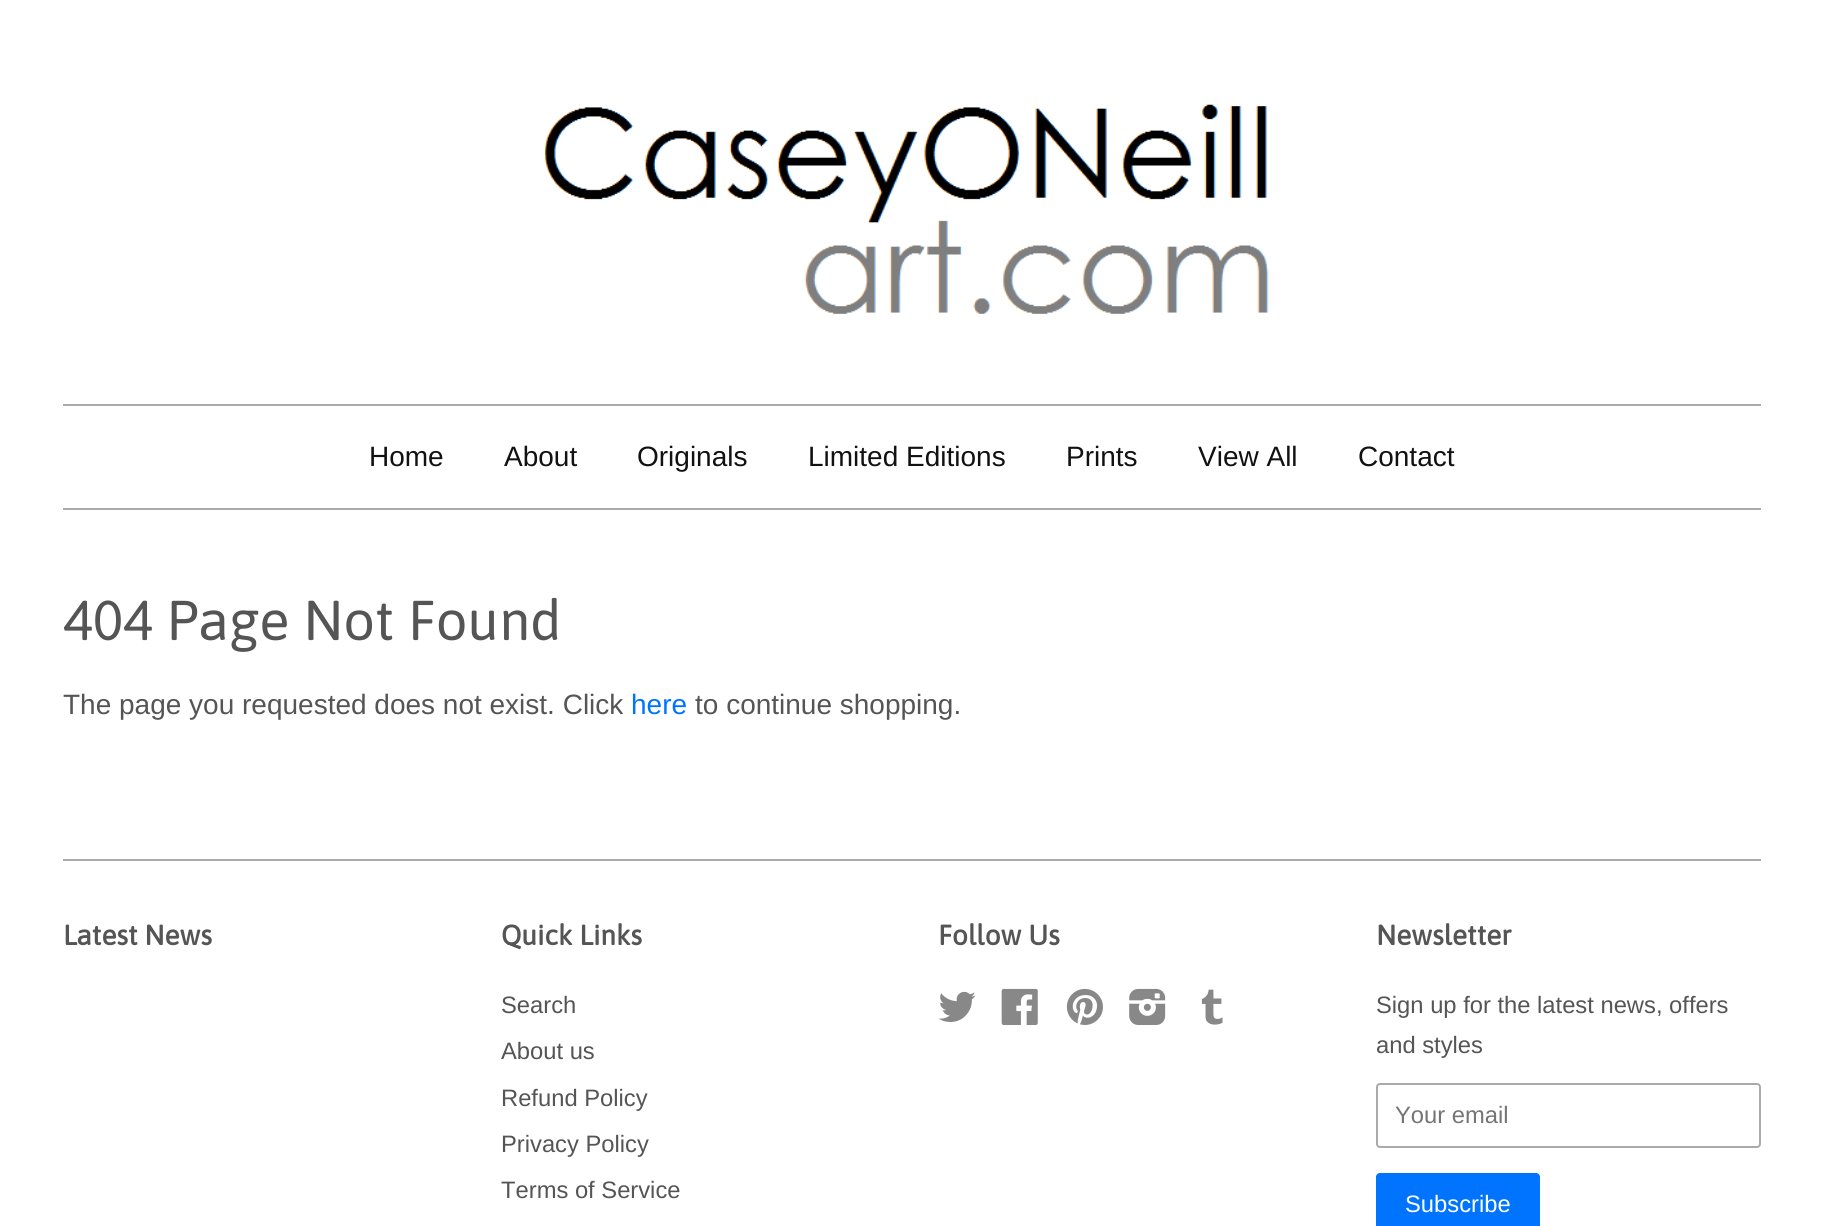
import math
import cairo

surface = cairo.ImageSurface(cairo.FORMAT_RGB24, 1822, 1226)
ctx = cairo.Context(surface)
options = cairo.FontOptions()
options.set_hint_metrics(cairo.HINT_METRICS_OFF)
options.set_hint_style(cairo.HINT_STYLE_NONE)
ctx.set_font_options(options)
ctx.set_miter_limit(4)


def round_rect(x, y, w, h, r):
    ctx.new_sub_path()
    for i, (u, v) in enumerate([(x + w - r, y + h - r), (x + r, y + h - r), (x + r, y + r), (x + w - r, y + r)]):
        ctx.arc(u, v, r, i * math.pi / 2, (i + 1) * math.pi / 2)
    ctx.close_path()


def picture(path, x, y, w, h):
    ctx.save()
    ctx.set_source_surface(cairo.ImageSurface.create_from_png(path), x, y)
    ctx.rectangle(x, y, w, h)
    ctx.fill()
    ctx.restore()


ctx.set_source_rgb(1, 1, 1)
ctx.paint()
picture("img1.png", 543, 104, 726, 210)
ctx.set_source_rgb(0.667, 0.667, 0.667)
ctx.rectangle(63, 404, 1698, 2)
ctx.fill()
ctx.rectangle(63, 508, 1698, 2)
ctx.fill()
ctx.select_font_face("Liberation Sans")
ctx.set_font_size(28)
ctx.set_source_rgb(0.067, 0.067, 0.067)
ctx.move_to(369, 466)
ctx.show_text("Home")
ctx.move_to(504, 466)
ctx.show_text("About")
ctx.move_to(637, 466)
ctx.show_text("Originals")
ctx.move_to(808, 466)
ctx.show_text("Limited Editions")
ctx.move_to(1066, 466)
ctx.show_text("Prints")
ctx.move_to(1198, 466)
ctx.show_text("View All")
ctx.move_to(1358, 466)
ctx.show_text("Contact")
ctx.select_font_face("Asap")
ctx.set_font_size(56)
ctx.set_source_rgb(0.333, 0.333, 0.333)
ctx.move_to(63, 640)
ctx.show_text("404 Page Not Found")
ctx.select_font_face("Liberation Sans")
ctx.set_font_size(28)
ctx.move_to(63, 714)
ctx.show_text("The page you requested does not exist. Click")
ctx.set_source_rgb(0, 0.455, 1)
ctx.move_to(631, 714)
ctx.show_text("here")
ctx.set_source_rgb(0.333, 0.333, 0.333)
ctx.move_to(695, 714)
ctx.show_text("to continue shopping.")
ctx.set_source_rgb(0.667, 0.667, 0.667)
ctx.rectangle(63, 859, 1698, 2)
ctx.fill()
ctx.select_font_face("Asap", cairo.FONT_SLANT_NORMAL, cairo.FONT_WEIGHT_BOLD)
ctx.set_source_rgb(0.333, 0.333, 0.333)
ctx.move_to(63, 945)
ctx.show_text("Latest News")
ctx.move_to(501, 945)
ctx.show_text("Quick Links")
ctx.select_font_face("Liberation Sans")
ctx.set_font_size(23.75)
ctx.move_to(501, 1013)
ctx.show_text("Search")
ctx.move_to(501, 1059)
ctx.show_text("About us")
ctx.move_to(501, 1106)
ctx.show_text("Refund Policy")
ctx.move_to(501, 1152)
ctx.show_text("Privacy Policy")
ctx.move_to(501, 1198)
ctx.show_text("Terms of Service")
ctx.select_font_face("Asap", cairo.FONT_SLANT_NORMAL, cairo.FONT_WEIGHT_BOLD)
ctx.set_font_size(28)
ctx.move_to(938, 945)
ctx.show_text("Follow Us")
picture("img2.png", 938, 991, 38, 31)
picture("img3.png", 1001, 988, 37, 37)
picture("img4.png", 1066, 988, 37, 37)
picture("img5.png", 1129, 988, 37, 37)
picture("img6.png", 1201, 989, 22, 36)
ctx.move_to(1376, 945)
ctx.show_text("Newsletter")
ctx.select_font_face("Liberation Sans")
ctx.set_font_size(23.75)
ctx.move_to(1376, 1013)
ctx.show_text("Sign up for the latest news, offers")
ctx.move_to(1376, 1053)
ctx.show_text("and styles")
round_rect(1377, 1084, 383, 63, 3)
ctx.set_source_rgb(0.667, 0.667, 0.667)
ctx.stroke()
ctx.set_source_rgb(0.459, 0.459, 0.459)
ctx.move_to(1395, 1123)
ctx.show_text("Your email")
ctx.set_source_rgb(0, 0.455, 1)
round_rect(1376, 1173, 164, 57, 4)
ctx.fill()
ctx.set_source_rgb(1, 1, 1)
ctx.move_to(1405, 1212)
ctx.show_text("Subscribe")
surface.write_to_png("page.png")
